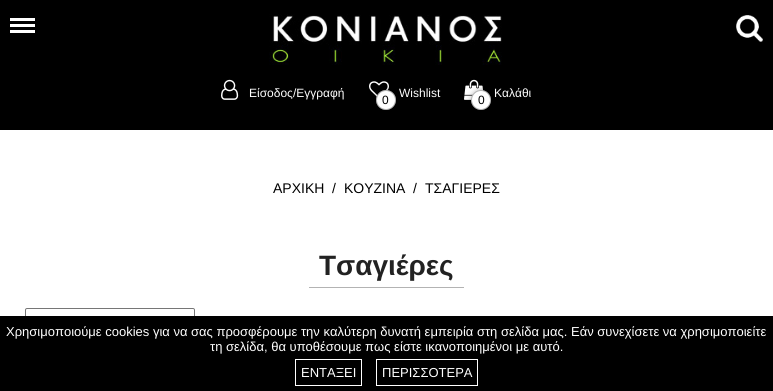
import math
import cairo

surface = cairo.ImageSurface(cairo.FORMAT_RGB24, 773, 391)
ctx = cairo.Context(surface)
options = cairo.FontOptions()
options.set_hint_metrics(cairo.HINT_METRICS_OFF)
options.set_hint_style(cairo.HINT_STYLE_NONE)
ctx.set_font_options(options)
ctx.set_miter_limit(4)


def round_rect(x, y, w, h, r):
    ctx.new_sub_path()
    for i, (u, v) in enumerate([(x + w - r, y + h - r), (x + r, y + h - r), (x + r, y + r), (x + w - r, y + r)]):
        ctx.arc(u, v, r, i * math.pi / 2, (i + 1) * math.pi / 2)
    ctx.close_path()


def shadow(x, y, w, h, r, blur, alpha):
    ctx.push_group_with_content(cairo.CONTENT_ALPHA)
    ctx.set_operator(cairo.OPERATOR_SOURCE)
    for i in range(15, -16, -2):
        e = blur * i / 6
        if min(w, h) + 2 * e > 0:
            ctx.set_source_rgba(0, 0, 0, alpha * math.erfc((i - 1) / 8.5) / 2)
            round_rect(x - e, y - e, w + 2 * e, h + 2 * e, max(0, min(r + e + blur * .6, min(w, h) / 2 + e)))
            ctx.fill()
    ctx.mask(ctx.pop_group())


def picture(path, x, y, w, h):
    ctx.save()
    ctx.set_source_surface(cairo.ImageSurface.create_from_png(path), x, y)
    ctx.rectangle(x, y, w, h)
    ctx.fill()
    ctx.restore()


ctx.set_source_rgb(1, 1, 1)
ctx.paint()
ctx.set_source_rgb(0, 0, 0)
ctx.rectangle(0, 0, 773, 130)
ctx.fill()
ctx.set_source_rgb(1, 1, 1)
ctx.rectangle(10, 18, 25, 3)
ctx.fill()
ctx.rectangle(10, 24, 25, 3)
ctx.fill()
ctx.rectangle(10, 30, 25, 3)
ctx.fill()
picture("img1.png", 269, 14, 233, 51)
picture("img2.png", 736, 15, 27, 27)
picture("img3.png", 221, 79, 18, 21)
ctx.select_font_face("Liberation Sans")
ctx.set_font_size(12)
ctx.move_to(249, 97)
ctx.show_text("Είσοδος/Εγγραφή")
picture("img4.png", 369, 81, 20, 16)
ctx.move_to(399, 97)
ctx.show_text("Wishlist")
ctx.set_source_rgb(0, 0, 0)
shadow(380, 94, 14, 14, 7, 4, 1)
ctx.set_source_rgb(1, 1, 1)
ctx.arc(386, 100, 10, 0, 2 * math.pi)
ctx.fill()
ctx.arc(386, 100, 9.5, 0, 2 * math.pi)
ctx.set_source_rgba(0, 0, 0, 0.3)
ctx.set_line_width(1)
ctx.stroke()
ctx.set_source_rgb(0, 0, 0)
ctx.move_to(382, 104)
ctx.show_text("0")
picture("img5.png", 464, 79, 20, 21)
ctx.set_source_rgb(1, 1, 1)
ctx.move_to(494, 97)
ctx.show_text("Καλάθι")
ctx.set_source_rgb(0, 0, 0)
shadow(475, 94, 14, 14, 7, 4, 1)
ctx.set_source_rgb(1, 1, 1)
ctx.arc(481, 100, 10, 0, 2 * math.pi)
ctx.fill()
ctx.arc(481, 100, 9.5, 0, 2 * math.pi)
ctx.set_source_rgba(0, 0, 0, 0.3)
ctx.stroke()
ctx.set_source_rgb(0, 0, 0)
ctx.move_to(478, 104)
ctx.show_text("0")
ctx.set_font_size(14)
ctx.move_to(273, 193)
ctx.show_text("ΑΡΧΙΚΗ")
ctx.move_to(332, 193)
ctx.show_text("/")
ctx.move_to(344, 193)
ctx.show_text("ΚΟΥΖΙΝΑ")
ctx.move_to(413, 193)
ctx.show_text("/")
ctx.move_to(425, 193)
ctx.show_text("ΤΣΑΓΙΕΡΕΣ")
ctx.set_source_rgb(0.702, 0.702, 0.702)
ctx.rectangle(309, 287, 155, 1)
ctx.fill()
ctx.select_font_face("Liberation Sans", cairo.FONT_SLANT_NORMAL, cairo.FONT_WEIGHT_BOLD)
ctx.set_font_size(28)
ctx.set_source_rgb(0.133, 0.133, 0.133)
ctx.move_to(319, 275)
ctx.show_text("Τσαγιέρες")
round_rect(25.5, 308.5, 169, 39, 1.5)
ctx.set_source_rgb(0.463, 0.463, 0.463)
ctx.stroke()
ctx.set_source_rgb(0, 0, 0)
ctx.rectangle(0, 316, 773, 75)
ctx.fill()
ctx.select_font_face("Liberation Sans")
ctx.set_font_size(13)
ctx.set_source_rgb(1, 1, 1)
ctx.move_to(6, 336)
ctx.show_text("Χρησιμοποιούμε cookies για να σας προσφέρουμε την καλύτερη δυνατή εμπειρία στη σελίδα μας. Εάν συνεχίσετε να χρησιμοποιείτε")
ctx.move_to(210, 351)
ctx.show_text("τη σελίδα, θα υποθέσουμε πως είστε ικανοποιημένοι με αυτό.")
ctx.rectangle(295.5, 359.5, 66, 26)
ctx.stroke()
ctx.move_to(301, 377)
ctx.show_text("ΕΝΤΑΞΕΙ")
ctx.rectangle(376.5, 359.5, 101, 26)
ctx.stroke()
ctx.move_to(382, 377)
ctx.show_text("ΠΕΡΙΣΣΟΤΕΡΑ")
surface.write_to_png("page.png")
